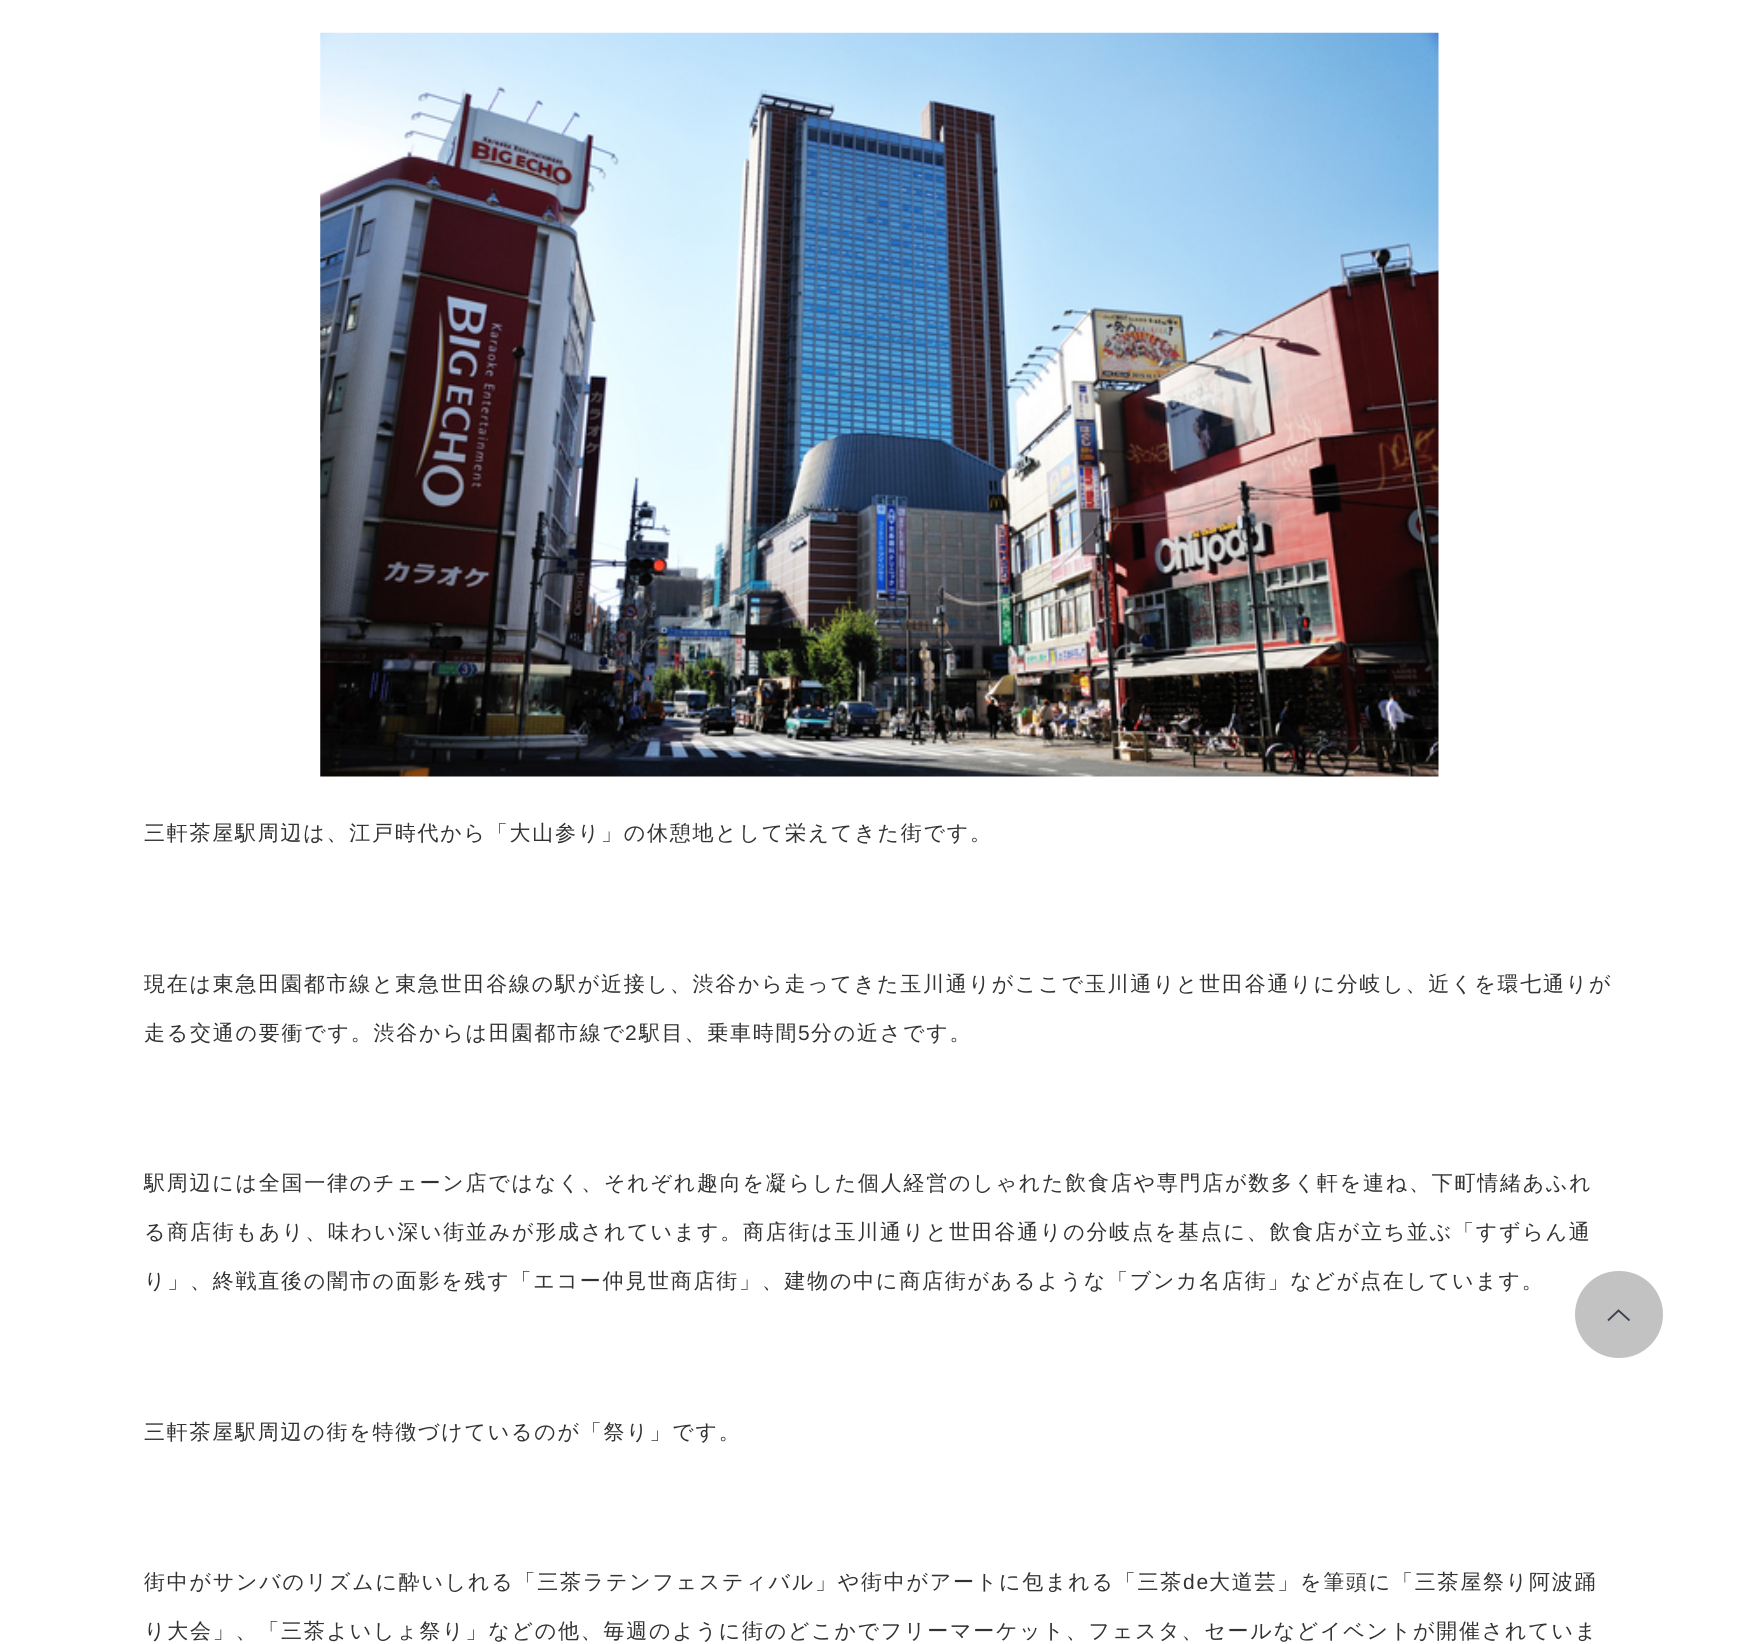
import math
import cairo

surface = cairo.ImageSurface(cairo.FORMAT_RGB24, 1757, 1644)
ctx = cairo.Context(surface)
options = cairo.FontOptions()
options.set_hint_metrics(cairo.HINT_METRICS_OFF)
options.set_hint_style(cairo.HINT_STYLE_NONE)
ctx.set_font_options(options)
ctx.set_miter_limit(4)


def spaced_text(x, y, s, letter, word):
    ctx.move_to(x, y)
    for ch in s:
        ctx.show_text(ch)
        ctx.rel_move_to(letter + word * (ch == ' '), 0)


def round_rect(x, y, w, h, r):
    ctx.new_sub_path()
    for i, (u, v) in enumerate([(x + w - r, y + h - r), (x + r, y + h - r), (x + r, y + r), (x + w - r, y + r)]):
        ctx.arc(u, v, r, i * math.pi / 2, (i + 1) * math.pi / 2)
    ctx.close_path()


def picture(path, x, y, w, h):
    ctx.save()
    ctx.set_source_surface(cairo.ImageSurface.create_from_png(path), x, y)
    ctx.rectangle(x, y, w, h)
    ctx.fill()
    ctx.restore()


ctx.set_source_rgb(1, 1, 1)
ctx.paint()
picture("img1.png", 320, 32, 1119, 745)
ctx.select_font_face("WenQuanYi Zen Hei Medium")
ctx.set_font_size(21)
ctx.set_source_rgb(0.196, 0.196, 0.196)
spaced_text(144, 840, "三軒茶屋駅周辺は、江戸時代から「大山参り」の休憩地として栄えてきた街です。", 1.75, 0)
spaced_text(144, 991, "現在は東急田園都市線と東急世田谷線の駅が近接し、渋谷から走ってきた玉川通りがここで玉川通りと世田谷通りに分岐し、近くを環七通りが", 1.75, 0)
spaced_text(144, 1040, "走る交通の要衝です。渋谷からは田園都市線で", 1.75, 0)
ctx.select_font_face("Liberation Sans")
spaced_text(625, 1040, "2", 1.75, 0)
ctx.select_font_face("WenQuanYi Zen Hei Medium")
spaced_text(639, 1040, "駅目、乗車時間", 1.75, 0)
ctx.select_font_face("Liberation Sans")
spaced_text(798, 1040, "5", 1.75, 0)
ctx.select_font_face("WenQuanYi Zen Hei Medium")
spaced_text(811, 1040, "分の近さです。", 1.75, 0)
spaced_text(144, 1190, "駅周辺には全国一律のチェーン店ではなく、それぞれ趣向を凝らした個人経営のしゃれた飲食店や専門店が数多く軒を連ね、下町情緒あふれ", 1.75, 0)
spaced_text(144, 1239, "る商店街もあり、味わい深い街並みが形成されています。商店街は玉川通りと世田谷通りの分岐点を基点に、飲食店が立ち並ぶ「すずらん通", 1.75, 0)
spaced_text(144, 1288, "り」、終戦直後の闇市の面影を残す「エコー仲見世商店街」、建物の中に商店街があるような「ブンカ名店街」などが点在しています。", 1.75, 0)
spaced_text(144, 1439, "三軒茶屋駅周辺の街を特徴づけているのが「祭り」です。", 1.75, 0)
spaced_text(144, 1589, "街中がサンバのリズムに酔いしれる「三茶ラテンフェスティバル」や街中がアートに包まれる「三茶", 1.75, 0)
ctx.select_font_face("Liberation Sans")
spaced_text(1183, 1589, "de", 1.75, 0)
ctx.select_font_face("WenQuanYi Zen Hei Medium")
spaced_text(1209, 1589, "大道芸」を筆頭に「三茶屋祭り阿波踊", 1.75, 0)
spaced_text(144, 1638, "り大会」、「三茶よいしょ祭り」などの他、毎週のように街のどこかでフリーマーケット、フェスタ、セールなどイベントが開催されていま", 1.75, 0)
ctx.set_source_rgb(0.761, 0.761, 0.761)
round_rect(1575, 1271, 88, 87, 43.5)
ctx.fill()
ctx.new_path()
ctx.move_to(1629.5, 1320.5)
ctx.line_to(1618.5, 1310.5)
ctx.line_to(1608, 1320.5)
ctx.set_source_rgb(0.227, 0.255, 0.31)
ctx.set_line_width(1.9)
ctx.stroke()
surface.write_to_png("page.png")
